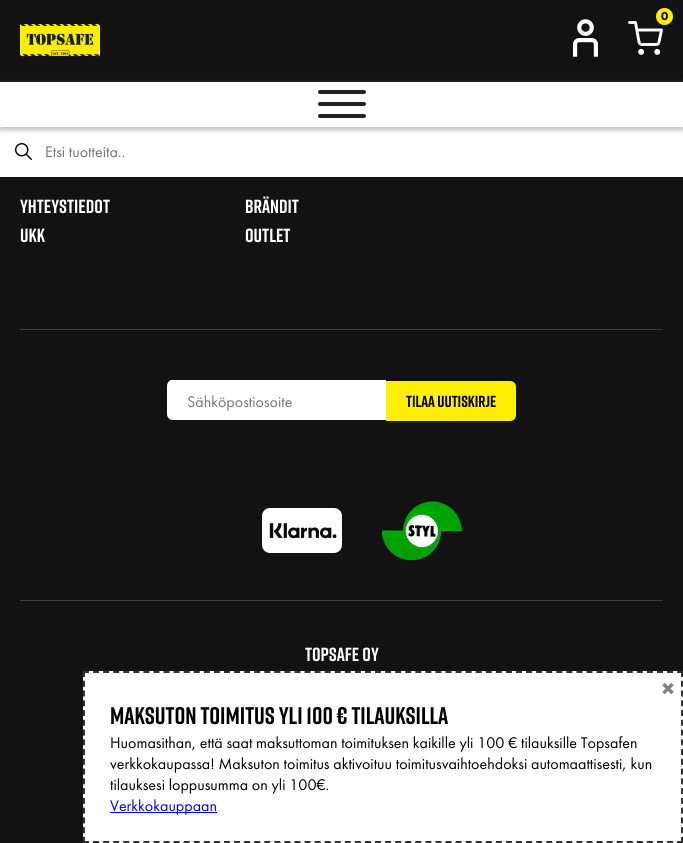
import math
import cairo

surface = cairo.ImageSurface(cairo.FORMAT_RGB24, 683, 843)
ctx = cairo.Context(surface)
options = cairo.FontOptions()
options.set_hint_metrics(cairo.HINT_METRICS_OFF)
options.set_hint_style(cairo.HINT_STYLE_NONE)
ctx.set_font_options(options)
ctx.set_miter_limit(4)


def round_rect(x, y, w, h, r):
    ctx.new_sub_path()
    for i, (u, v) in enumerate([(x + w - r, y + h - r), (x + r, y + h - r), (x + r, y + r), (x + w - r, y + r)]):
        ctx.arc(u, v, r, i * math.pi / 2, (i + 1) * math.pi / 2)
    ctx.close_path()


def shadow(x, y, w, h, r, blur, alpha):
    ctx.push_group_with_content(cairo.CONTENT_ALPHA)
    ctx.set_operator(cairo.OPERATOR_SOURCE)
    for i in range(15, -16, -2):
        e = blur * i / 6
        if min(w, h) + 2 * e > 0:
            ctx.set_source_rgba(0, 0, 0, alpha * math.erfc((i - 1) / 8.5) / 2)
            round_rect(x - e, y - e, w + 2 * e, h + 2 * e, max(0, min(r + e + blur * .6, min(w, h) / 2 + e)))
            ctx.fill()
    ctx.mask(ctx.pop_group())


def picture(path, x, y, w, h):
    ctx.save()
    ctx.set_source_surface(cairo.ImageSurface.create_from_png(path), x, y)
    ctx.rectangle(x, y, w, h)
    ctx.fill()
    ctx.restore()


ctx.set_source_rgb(0.071, 0.071, 0.071)
ctx.paint()
ctx.new_path()
ctx.move_to(629.5, 22.5)
ctx.line_to(635.5, 22.5)
ctx.line_to(639, 42)
ctx.curve_to(639.5, 43.5, 640.5, 44.5, 642, 44.5)
ctx.line_to(656.5, 44.5)
ctx.curve_to(657.5, 44.5, 659, 43.5, 659, 42)
ctx.line_to(661.5, 30)
ctx.line_to(637, 30)
ctx.set_source_rgb(1, 1, 1)
ctx.set_line_width(2.9)
ctx.set_line_cap(cairo.LINE_CAP_ROUND)
ctx.set_line_join(cairo.LINE_JOIN_ROUND)
ctx.stroke()
ctx.set_source_rgb(1, 0.937, 0)
ctx.arc(664.5, 16.5, 8.5, 0, 2 * math.pi)
ctx.fill()
ctx.select_font_face("Futura PT Black")
ctx.set_font_size(12)
ctx.set_source_rgb(0, 0, 0)
ctx.move_to(661, 20)
ctx.show_text("0")
ctx.new_path()
ctx.arc(641.1, 51.9, 1.5, 0, 2 * math.pi)
ctx.set_source_rgb(1, 1, 1)
ctx.set_line_cap(cairo.LINE_CAP_BUTT)
ctx.set_line_join(cairo.LINE_JOIN_MITER)
ctx.stroke()
ctx.arc(657.2, 51.9, 1.5, 0, 2 * math.pi)
ctx.stroke()
picture("img1.png", 573, 19, 25, 38)
picture("img2.png", 20, 24, 80, 33)
ctx.rectangle(0, 127, 683, 50)
ctx.fill()
picture("img3.png", 15, 143, 17, 17)
ctx.select_font_face("Futura PT")
ctx.set_font_size(16)
ctx.set_source_rgb(0.459, 0.459, 0.459)
ctx.move_to(45, 157)
ctx.show_text("Etsi tuotteita..")
ctx.set_source_rgb(0.749, 0.745, 0.745)
shadow(0, 85, 683, 45, 0, 2.5, 1)
ctx.set_source_rgb(1, 1, 1)
ctx.rectangle(0, 82, 683, 45)
ctx.fill()
ctx.set_source_rgb(0.133, 0.133, 0.133)
round_rect(318, 90, 48, 4, 2)
ctx.fill()
round_rect(318, 102, 48, 4, 2)
ctx.fill()
round_rect(318, 114, 48, 4, 2)
ctx.fill()
ctx.select_font_face("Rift", cairo.FONT_SLANT_NORMAL, cairo.FONT_WEIGHT_BOLD)
ctx.set_font_size(19)
ctx.set_source_rgb(1, 1, 1)
ctx.move_to(20, 213)
ctx.show_text("Yhteystiedot")
ctx.move_to(20, 242)
ctx.show_text("UKK")
ctx.move_to(245, 213)
ctx.show_text("Brändit")
ctx.move_to(245, 242)
ctx.show_text("Outlet")
ctx.set_source_rgb(0.243, 0.243, 0.243)
ctx.rectangle(20, 329, 643, 1)
ctx.fill()
ctx.set_source_rgb(1, 1, 1)
ctx.new_path()
ctx.move_to(173, 380)
ctx.line_to(386, 380)
ctx.line_to(386, 420)
ctx.line_to(173, 420)
ctx.curve_to(169.5, 420, 167, 417.5, 167, 414)
ctx.line_to(167, 386)
ctx.curve_to(167, 382.5, 169.5, 380, 173, 380)
ctx.close_path()
ctx.fill()
ctx.rectangle(170, 380, 3, 1)
ctx.fill()
ctx.select_font_face("Futura PT")
ctx.set_font_size(16)
ctx.set_source_rgb(0.459, 0.459, 0.459)
ctx.move_to(187, 407)
ctx.show_text("Sähköpostiosoite")
ctx.set_source_rgb(1, 0.937, 0)
ctx.new_path()
ctx.move_to(386, 381)
ctx.line_to(510, 381)
ctx.curve_to(513.5, 381, 516, 383.5, 516, 387)
ctx.line_to(516, 415)
ctx.curve_to(516, 418.5, 513.5, 421, 510, 421)
ctx.line_to(386, 421)
ctx.close_path()
ctx.fill()
ctx.select_font_face("Rift", cairo.FONT_SLANT_NORMAL, cairo.FONT_WEIGHT_BOLD)
ctx.set_source_rgb(0, 0, 0)
ctx.move_to(406, 407)
ctx.show_text("Tilaa uutiskirje")
picture("img4.png", 262, 508, 80, 45)
picture("img5.png", 382, 501, 80, 59)
ctx.set_source_rgb(0.243, 0.243, 0.243)
ctx.rectangle(20, 600, 643, 1)
ctx.fill()
ctx.set_font_size(19)
ctx.set_source_rgb(1, 1, 1)
ctx.move_to(305, 661)
ctx.show_text("Topsafe Oy")
ctx.rectangle(83, 671, 600, 172)
ctx.fill()
ctx.new_path()
ctx.move_to(83, 672)
ctx.line_to(683, 672)
ctx.set_source_rgb(0.2, 0.2, 0.2)
ctx.set_line_width(2)
ctx.set_dash([6, 4.07])
ctx.stroke()
ctx.new_path()
ctx.move_to(682, 671)
ctx.line_to(682, 843)
ctx.set_dash([6, 3.76])
ctx.stroke()
ctx.new_path()
ctx.move_to(83, 842)
ctx.line_to(683, 842)
ctx.set_dash([6, 4.07])
ctx.stroke()
ctx.new_path()
ctx.move_to(84, 671)
ctx.line_to(84, 843)
ctx.set_dash([6, 3.76])
ctx.stroke()
ctx.select_font_face("Futura PT Black")
ctx.set_font_size(28)
ctx.set_source_rgb(0.502, 0.502, 0.502)
ctx.move_to(661, 698)
ctx.show_text("×")
ctx.select_font_face("Rift", cairo.FONT_SLANT_NORMAL, cairo.FONT_WEIGHT_BOLD)
ctx.set_font_size(24)
ctx.set_source_rgb(0, 0, 0)
ctx.move_to(110, 724)
ctx.show_text("Maksuton toimitus yli 100 € tilauksilla")
ctx.select_font_face("Futura PT")
ctx.set_font_size(16)
ctx.move_to(110, 748)
ctx.show_text("Huomasithan, että saat maksuttoman toimituksen kaikille yli 100 € tilauksille Topsafen")
ctx.move_to(110, 769)
ctx.show_text("verkkokaupassa! Maksuton toimitus aktivoituu toimitusvaihtoehdoksi automaattisesti, kun")
ctx.move_to(110, 790)
ctx.show_text("tilauksesi loppusumma on yli 100€.")
ctx.set_source_rgb(0, 0, 0.933)
ctx.rectangle(110, 812, 107, 1)
ctx.fill()
ctx.move_to(110, 811)
ctx.show_text("Verkkokauppaan")
surface.write_to_png("page.png")
